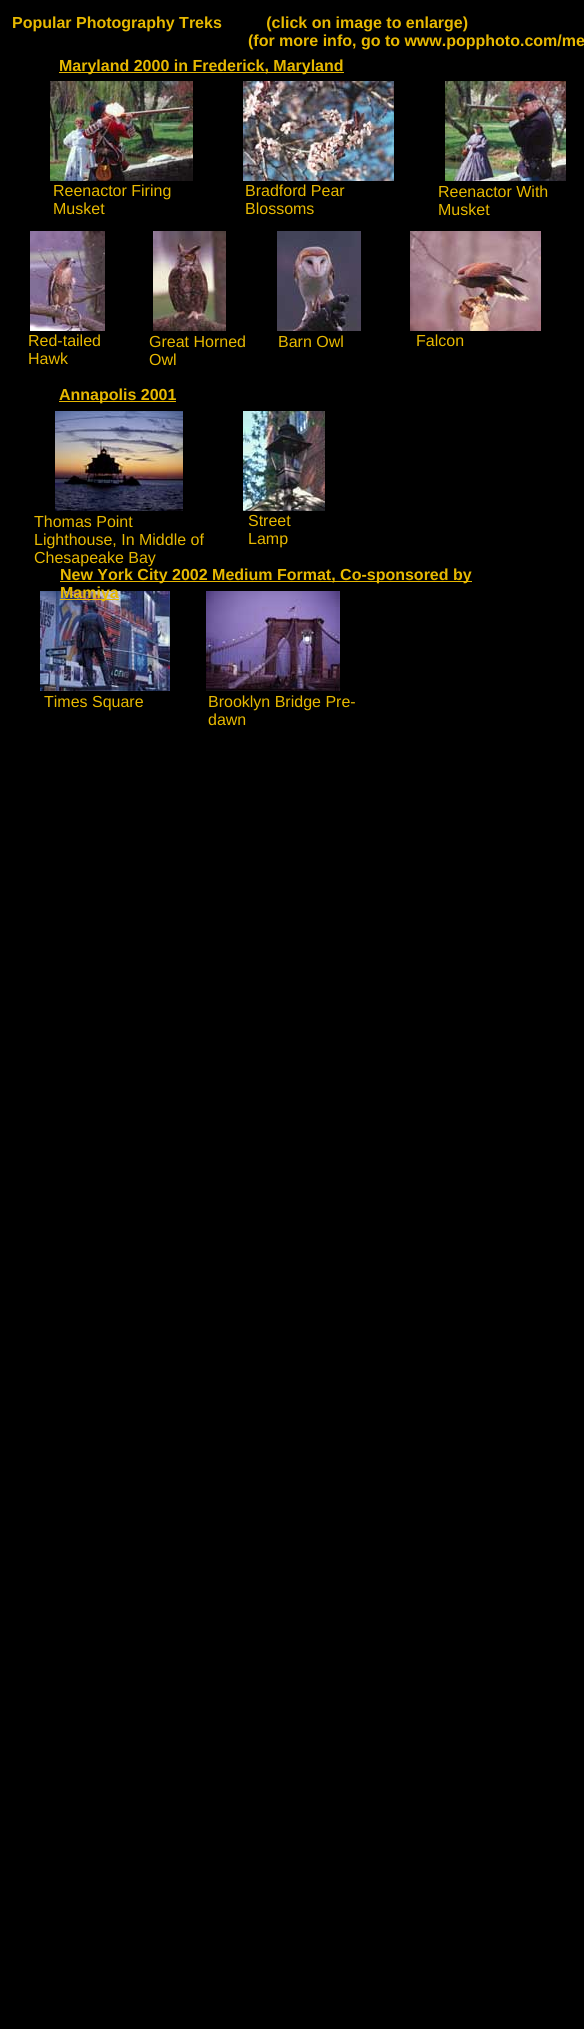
import math
import cairo

surface = cairo.ImageSurface(cairo.FORMAT_RGB24, 584, 2029)
ctx = cairo.Context(surface)
options = cairo.FontOptions()
options.set_hint_metrics(cairo.HINT_METRICS_OFF)
options.set_hint_style(cairo.HINT_STYLE_NONE)
ctx.set_font_options(options)
ctx.set_miter_limit(4)


def picture(path, x, y, w, h):
    ctx.save()
    ctx.set_source_surface(cairo.ImageSurface.create_from_png(path), x, y)
    ctx.rectangle(x, y, w, h)
    ctx.fill()
    ctx.restore()


ctx.set_source_rgb(0, 0, 0)
ctx.paint()
ctx.select_font_face("Liberation Sans", cairo.FONT_SLANT_NORMAL, cairo.FONT_WEIGHT_BOLD)
ctx.set_font_size(16)
ctx.set_source_rgb(0.91, 0.725, 0)
ctx.move_to(12, 28)
ctx.show_text("Popular Photography Treks          (click on image to enlarge)")
ctx.move_to(248, 46)
ctx.show_text("(for more info, go to www.popphoto.com/me")
ctx.rectangle(59, 72, 285, 1)
ctx.fill()
ctx.move_to(59, 71)
ctx.show_text("Maryland 2000 in Frederick, Maryland")
picture("img1.png", 50, 81, 143, 100)
picture("img2.png", 243, 81, 151, 100)
picture("img3.png", 445, 81, 121, 100)
ctx.select_font_face("Liberation Sans")
ctx.move_to(53, 196)
ctx.show_text("Reenactor Firing")
ctx.move_to(53, 214)
ctx.show_text("Musket")
ctx.move_to(245, 196)
ctx.show_text("Bradford Pear")
ctx.move_to(245, 214)
ctx.show_text("Blossoms")
ctx.move_to(438, 197)
ctx.show_text("Reenactor With")
ctx.move_to(438, 215)
ctx.show_text("Musket")
picture("img4.png", 30, 231, 75, 100)
picture("img5.png", 153, 231, 73, 100)
picture("img6.png", 277, 231, 84, 100)
picture("img7.png", 410, 231, 131, 100)
ctx.move_to(28, 346)
ctx.show_text("Red-tailed")
ctx.move_to(28, 364)
ctx.show_text("Hawk")
ctx.move_to(149, 347)
ctx.show_text("Great Horned")
ctx.move_to(149, 365)
ctx.show_text("Owl")
ctx.move_to(278, 347)
ctx.show_text("Barn Owl")
ctx.move_to(416, 346)
ctx.show_text("Falcon")
ctx.rectangle(59, 401, 117, 1)
ctx.fill()
ctx.select_font_face("Liberation Sans", cairo.FONT_SLANT_NORMAL, cairo.FONT_WEIGHT_BOLD)
ctx.move_to(59, 400)
ctx.show_text("Annapolis 2001")
picture("img8.png", 55, 411, 128, 100)
picture("img9.png", 243, 411, 82, 100)
ctx.select_font_face("Liberation Sans")
ctx.move_to(34, 527)
ctx.show_text("Thomas Point")
ctx.move_to(34, 545)
ctx.show_text("Lighthouse, In Middle of")
ctx.move_to(34, 563)
ctx.show_text("Chesapeake Bay")
ctx.move_to(248, 526)
ctx.show_text("Street")
ctx.move_to(248, 544)
ctx.show_text("Lamp")
ctx.rectangle(60, 581, 412, 1)
ctx.fill()
ctx.select_font_face("Liberation Sans", cairo.FONT_SLANT_NORMAL, cairo.FONT_WEIGHT_BOLD)
ctx.move_to(60, 580)
ctx.show_text("New York City 2002 Medium Format, Co-sponsored by")
picture("img10.png", 40, 591, 130, 100)
ctx.rectangle(60, 599, 59, 1)
ctx.fill()
ctx.move_to(60, 598)
ctx.show_text("Mamiya")
picture("img11.png", 206, 591, 134, 100)
ctx.select_font_face("Liberation Sans")
ctx.move_to(44, 707)
ctx.show_text("Times Square")
ctx.move_to(208, 707)
ctx.show_text("Brooklyn Bridge Pre-")
ctx.move_to(208, 725)
ctx.show_text("dawn")
surface.write_to_png("page.png")
